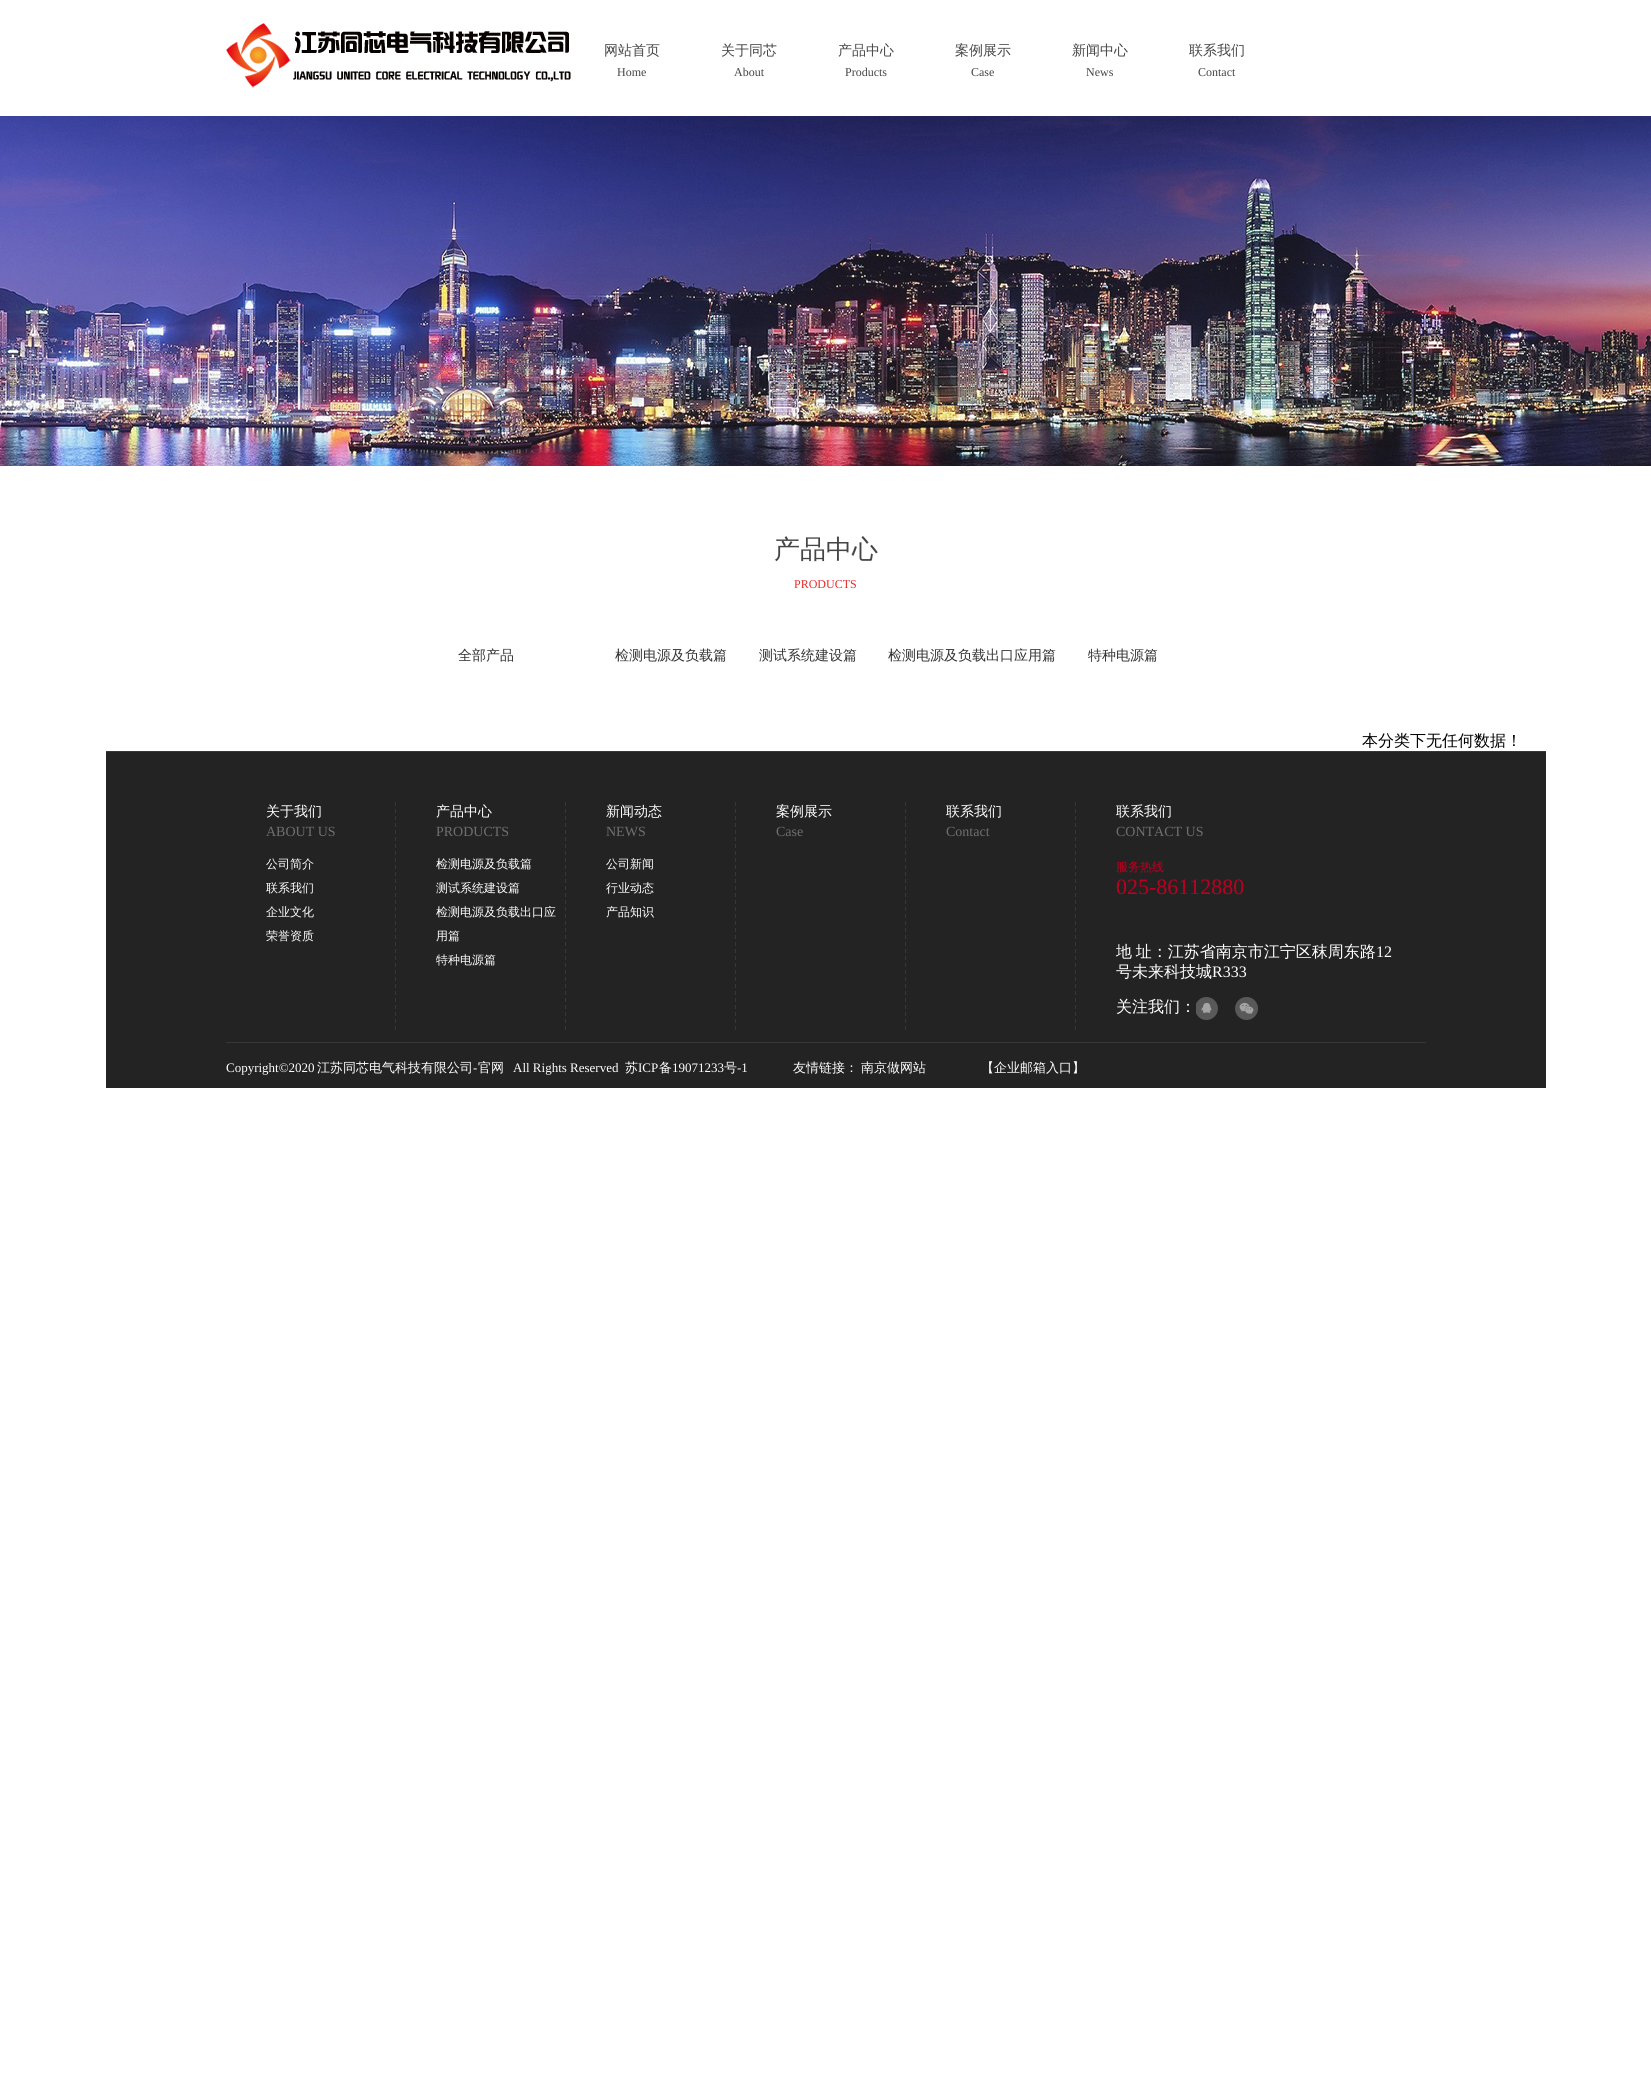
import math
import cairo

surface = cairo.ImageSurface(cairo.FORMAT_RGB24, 1651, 2099)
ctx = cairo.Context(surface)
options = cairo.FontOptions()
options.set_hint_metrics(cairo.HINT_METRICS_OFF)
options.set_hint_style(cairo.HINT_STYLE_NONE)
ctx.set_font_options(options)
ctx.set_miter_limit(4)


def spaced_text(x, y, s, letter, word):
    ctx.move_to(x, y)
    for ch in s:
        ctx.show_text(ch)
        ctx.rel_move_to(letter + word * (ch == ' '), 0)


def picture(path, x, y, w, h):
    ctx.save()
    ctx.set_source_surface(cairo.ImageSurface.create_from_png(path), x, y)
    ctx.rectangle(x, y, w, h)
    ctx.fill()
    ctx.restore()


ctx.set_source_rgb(1, 1, 1)
ctx.paint()
picture("img1.png", 226, 23, 345, 65)
ctx.select_font_face("WenQuanYi Zen Hei Medium")
ctx.set_font_size(14)
ctx.set_source_rgb(0.271, 0.271, 0.271)
ctx.move_to(604, 55)
ctx.show_text("网站首页")
ctx.select_font_face("Liberation Serif")
ctx.set_font_size(12)
ctx.move_to(617, 76)
ctx.show_text("Home")
ctx.select_font_face("WenQuanYi Zen Hei Medium")
ctx.set_font_size(14)
ctx.move_to(721, 55)
ctx.show_text("关于同芯")
ctx.select_font_face("Liberation Serif")
ctx.set_font_size(12)
ctx.move_to(734, 76)
ctx.show_text("About")
ctx.select_font_face("WenQuanYi Zen Hei Medium")
ctx.set_font_size(14)
ctx.move_to(838, 55)
ctx.show_text("产品中心")
ctx.select_font_face("Liberation Serif")
ctx.set_font_size(12)
ctx.move_to(845, 76)
ctx.show_text("Products")
ctx.select_font_face("WenQuanYi Zen Hei Medium")
ctx.set_font_size(14)
ctx.move_to(955, 55)
ctx.show_text("案例展示")
ctx.select_font_face("Liberation Serif")
ctx.set_font_size(12)
ctx.move_to(971, 76)
ctx.show_text("Case")
ctx.select_font_face("WenQuanYi Zen Hei Medium")
ctx.set_font_size(14)
ctx.move_to(1072, 55)
ctx.show_text("新闻中心")
ctx.select_font_face("Liberation Serif")
ctx.set_font_size(12)
ctx.move_to(1086, 76)
ctx.show_text("News")
ctx.select_font_face("WenQuanYi Zen Hei Medium")
ctx.set_font_size(14)
ctx.move_to(1189, 55)
ctx.show_text("联系我们")
ctx.select_font_face("Liberation Serif")
ctx.set_font_size(12)
ctx.move_to(1198, 76)
ctx.show_text("Contact")
picture("img2.png", 0, 116, 1651, 350)
ctx.select_font_face("WenQuanYi Zen Hei Medium")
ctx.set_font_size(26)
ctx.move_to(774, 558)
ctx.show_text("产品中心")
ctx.select_font_face("Liberation Serif")
ctx.set_font_size(12)
ctx.set_source_rgb(0.894, 0.173, 0.173)
ctx.move_to(794, 588)
ctx.show_text("PRODUCTS")
ctx.select_font_face("WenQuanYi Zen Hei Medium")
ctx.set_font_size(14)
ctx.set_source_rgb(0.196, 0.196, 0.196)
ctx.move_to(458, 660)
ctx.show_text("全部产品")
ctx.move_to(615, 660)
ctx.show_text("检测电源及负载篇")
ctx.move_to(759, 660)
ctx.show_text("测试系统建设篇")
ctx.move_to(888, 660)
ctx.show_text("检测电源及负载出口应用篇")
ctx.move_to(1088, 660)
ctx.show_text("特种电源篇")
ctx.set_font_size(16)
ctx.set_source_rgb(0, 0, 0)
ctx.move_to(1362, 746)
ctx.show_text("本分类下无任何数据！")
ctx.set_source_rgb(0.137, 0.137, 0.137)
ctx.rectangle(106, 752, 1440, 336)
ctx.fill()
ctx.set_source_rgb(0.216, 0.216, 0.216)
ctx.rectangle(106, 751, 1440, 1)
ctx.fill()
picture("img3.png", 395, 802, 1, 228)
ctx.set_font_size(14)
ctx.set_source_rgb(1, 1, 1)
ctx.move_to(266, 816)
ctx.show_text("关于我们")
ctx.select_font_face("Liberation Serif")
ctx.set_source_rgb(0.435, 0.435, 0.435)
ctx.move_to(266, 836)
ctx.show_text("ABOUT US")
ctx.select_font_face("WenQuanYi Zen Hei Medium")
ctx.set_font_size(12)
ctx.set_source_rgb(1, 1, 1)
ctx.move_to(266, 868)
ctx.show_text("公司简介")
ctx.move_to(266, 892)
ctx.show_text("联系我们")
ctx.move_to(266, 916)
ctx.show_text("企业文化")
ctx.move_to(266, 940)
ctx.show_text("荣誉资质")
picture("img3.png", 565, 802, 1, 228)
ctx.set_font_size(14)
ctx.move_to(436, 816)
ctx.show_text("产品中心")
ctx.select_font_face("Liberation Serif")
ctx.set_source_rgb(0.435, 0.435, 0.435)
ctx.move_to(436, 836)
ctx.show_text("PRODUCTS")
ctx.select_font_face("WenQuanYi Zen Hei Medium")
ctx.set_font_size(12)
ctx.set_source_rgb(1, 1, 1)
ctx.move_to(436, 868)
ctx.show_text("检测电源及负载篇")
ctx.move_to(436, 892)
ctx.show_text("测试系统建设篇")
ctx.move_to(436, 916)
ctx.show_text("检测电源及负载出口应")
ctx.move_to(436, 940)
ctx.show_text("用篇")
ctx.move_to(436, 964)
ctx.show_text("特种电源篇")
picture("img3.png", 735, 802, 1, 228)
ctx.set_font_size(14)
ctx.move_to(606, 816)
ctx.show_text("新闻动态")
ctx.select_font_face("Liberation Serif")
ctx.set_source_rgb(0.435, 0.435, 0.435)
ctx.move_to(606, 836)
ctx.show_text("NEWS")
ctx.select_font_face("WenQuanYi Zen Hei Medium")
ctx.set_font_size(12)
ctx.set_source_rgb(1, 1, 1)
ctx.move_to(606, 868)
ctx.show_text("公司新闻")
ctx.move_to(606, 892)
ctx.show_text("行业动态")
ctx.move_to(606, 916)
ctx.show_text("产品知识")
picture("img3.png", 905, 802, 1, 228)
ctx.set_font_size(14)
ctx.move_to(776, 816)
ctx.show_text("案例展示")
ctx.select_font_face("Liberation Serif")
ctx.set_source_rgb(0.435, 0.435, 0.435)
ctx.move_to(776, 836)
ctx.show_text("Case")
picture("img3.png", 1075, 802, 1, 228)
ctx.select_font_face("WenQuanYi Zen Hei Medium")
ctx.set_source_rgb(1, 1, 1)
ctx.move_to(946, 816)
ctx.show_text("联系我们")
ctx.select_font_face("Liberation Serif")
ctx.set_source_rgb(0.435, 0.435, 0.435)
ctx.move_to(946, 836)
ctx.show_text("Contact")
ctx.select_font_face("WenQuanYi Zen Hei Medium")
ctx.set_source_rgb(1, 1, 1)
ctx.move_to(1116, 816)
ctx.show_text("联系我们")
ctx.select_font_face("Liberation Serif")
ctx.set_source_rgb(0.435, 0.435, 0.435)
ctx.move_to(1116, 836)
ctx.show_text("CONTACT US")
ctx.select_font_face("WenQuanYi Zen Hei Medium")
ctx.set_font_size(12)
ctx.set_source_rgb(0.737, 0, 0.122)
ctx.move_to(1116, 871)
ctx.show_text("服务热线")
ctx.select_font_face("Liberation Serif")
ctx.set_font_size(22)
ctx.move_to(1116, 894)
ctx.show_text("025-86112880")
ctx.select_font_face("WenQuanYi Zen Hei Medium")
ctx.set_font_size(16)
ctx.set_source_rgb(1, 1, 1)
spaced_text(1116, 957, "地 址：江苏省南京市江宁区秣周东路", 0, -1)
ctx.select_font_face("Liberation Serif")
ctx.move_to(1376, 957)
ctx.show_text("12")
ctx.select_font_face("WenQuanYi Zen Hei Medium")
ctx.move_to(1116, 977)
ctx.show_text("号未来科技城")
ctx.select_font_face("Liberation Serif")
ctx.move_to(1212, 977)
ctx.show_text("R333")
ctx.select_font_face("WenQuanYi Zen Hei Medium")
ctx.move_to(1116, 1012)
ctx.show_text("关注我们：")
picture("img4.png", 1196, 997, 22, 23)
picture("img5.png", 1235, 997, 23, 23)
ctx.set_source_rgb(0.216, 0.216, 0.216)
ctx.rectangle(226, 1042, 1200, 1)
ctx.fill()
ctx.select_font_face("Liberation Serif")
ctx.set_font_size(13)
ctx.set_source_rgb(1, 1, 1)
ctx.move_to(226, 1072)
ctx.show_text("Copyright©2020")
ctx.select_font_face("WenQuanYi Zen Hei Medium")
ctx.move_to(317, 1072)
ctx.show_text("江苏同芯电气科技有限公司")
ctx.select_font_face("Liberation Serif")
ctx.move_to(473, 1072)
ctx.show_text("-")
ctx.select_font_face("WenQuanYi Zen Hei Medium")
ctx.move_to(478, 1072)
ctx.show_text("官网")
ctx.select_font_face("Liberation Serif")
ctx.move_to(513, 1072)
ctx.show_text("All Rights Reserved")
ctx.select_font_face("WenQuanYi Zen Hei Medium")
ctx.move_to(625, 1072)
ctx.show_text("苏")
ctx.select_font_face("Liberation Serif")
ctx.move_to(638, 1072)
ctx.show_text("ICP")
ctx.select_font_face("WenQuanYi Zen Hei Medium")
ctx.move_to(659, 1072)
ctx.show_text("备")
ctx.select_font_face("Liberation Serif")
ctx.move_to(672, 1072)
ctx.show_text("19071233")
ctx.select_font_face("WenQuanYi Zen Hei Medium")
ctx.move_to(724, 1072)
ctx.show_text("号")
ctx.select_font_face("Liberation Serif")
ctx.move_to(737, 1072)
ctx.show_text("-1")
ctx.select_font_face("WenQuanYi Zen Hei Medium")
ctx.move_to(793, 1072)
ctx.show_text("友情链接：")
ctx.move_to(861, 1072)
ctx.show_text("南京做网站")
ctx.move_to(981, 1072)
ctx.show_text("【企业邮箱入口】")
surface.write_to_png("page.png")
